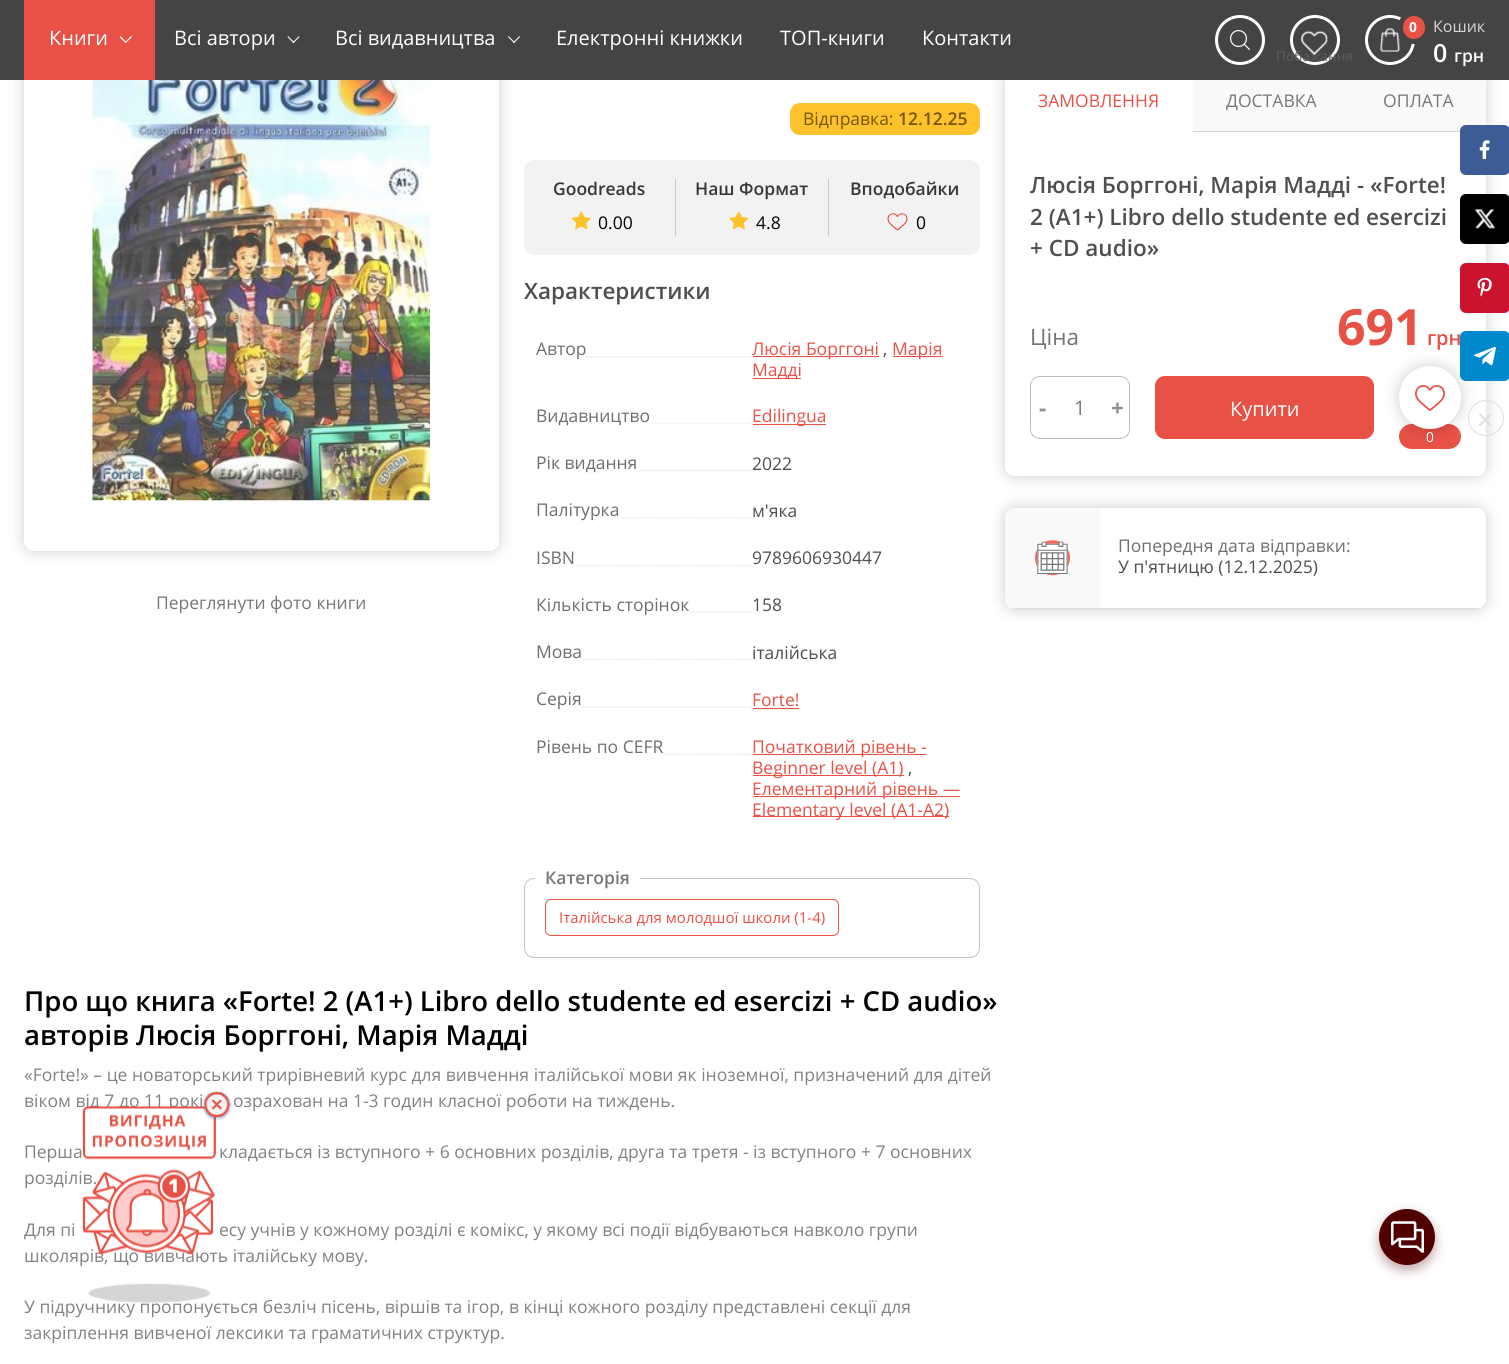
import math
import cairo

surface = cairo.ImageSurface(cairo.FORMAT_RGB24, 1509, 1364)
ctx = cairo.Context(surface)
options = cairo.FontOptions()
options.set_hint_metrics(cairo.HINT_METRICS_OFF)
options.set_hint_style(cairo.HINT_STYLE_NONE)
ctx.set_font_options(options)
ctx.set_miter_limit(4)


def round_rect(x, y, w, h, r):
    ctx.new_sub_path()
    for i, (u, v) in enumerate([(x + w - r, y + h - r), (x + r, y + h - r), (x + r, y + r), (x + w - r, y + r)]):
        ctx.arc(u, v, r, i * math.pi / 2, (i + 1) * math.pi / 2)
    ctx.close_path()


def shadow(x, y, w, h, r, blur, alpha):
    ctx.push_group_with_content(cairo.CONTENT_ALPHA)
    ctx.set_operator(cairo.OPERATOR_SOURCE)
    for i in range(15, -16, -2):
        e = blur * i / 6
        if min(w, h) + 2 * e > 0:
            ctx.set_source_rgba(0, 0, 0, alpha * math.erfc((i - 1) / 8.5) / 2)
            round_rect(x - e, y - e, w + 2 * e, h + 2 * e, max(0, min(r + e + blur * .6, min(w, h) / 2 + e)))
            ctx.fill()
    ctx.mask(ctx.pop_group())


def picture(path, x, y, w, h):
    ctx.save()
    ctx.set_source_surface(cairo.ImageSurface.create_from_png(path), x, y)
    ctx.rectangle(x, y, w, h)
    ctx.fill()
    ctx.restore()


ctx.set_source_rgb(1, 1, 1)
ctx.paint()
ctx.save()
ctx.set_fill_rule(cairo.FILL_RULE_EVEN_ODD)
ctx.new_path()
ctx.move_to(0, 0)
ctx.line_to(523, 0)
ctx.line_to(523, 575)
ctx.line_to(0, 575)
ctx.close_path()
ctx.move_to(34, -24)
ctx.line_to(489, -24)
ctx.curve_to(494.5, -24, 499, -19.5, 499, -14)
ctx.line_to(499, 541)
ctx.curve_to(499, 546.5, 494.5, 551, 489, 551)
ctx.line_to(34, 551)
ctx.curve_to(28.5, 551, 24, 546.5, 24, 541)
ctx.line_to(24, -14)
ctx.curve_to(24, -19.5, 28.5, -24, 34, -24)
ctx.close_path()
ctx.clip()
ctx.set_source_rgb(0, 0, 0)
shadow(24, -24, 475, 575, 10, 7.5, 0.2)
ctx.restore()
ctx.save()
ctx.set_fill_rule(cairo.FILL_RULE_EVEN_ODD)
ctx.new_path()
ctx.move_to(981, 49)
ctx.line_to(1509, 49)
ctx.line_to(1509, 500)
ctx.line_to(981, 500)
ctx.close_path()
ctx.move_to(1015, 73)
ctx.line_to(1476, 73)
ctx.curve_to(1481.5, 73, 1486, 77.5, 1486, 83)
ctx.line_to(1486, 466)
ctx.curve_to(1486, 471.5, 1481.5, 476, 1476, 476)
ctx.line_to(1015, 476)
ctx.curve_to(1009.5, 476, 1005, 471.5, 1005, 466)
ctx.line_to(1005, 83)
ctx.curve_to(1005, 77.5, 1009.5, 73, 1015, 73)
ctx.close_path()
ctx.clip()
ctx.set_source_rgb(0, 0, 0)
shadow(1005, 73, 481, 403, 10, 7.5, 0.2)
ctx.restore()
ctx.set_source_rgb(1, 1, 1)
ctx.new_path()
ctx.move_to(1015, 73)
ctx.line_to(1193, 73)
ctx.line_to(1193, 131)
ctx.line_to(1005, 131)
ctx.line_to(1005, 83)
ctx.curve_to(1005, 77.5, 1009.5, 73, 1015, 73)
ctx.close_path()
ctx.fill()
ctx.set_source_rgb(0.976, 0.976, 0.976)
ctx.new_path()
ctx.move_to(1349, 73)
ctx.line_to(1476, 73)
ctx.curve_to(1481.5, 73, 1486, 77.5, 1486, 83)
ctx.line_to(1486, 131)
ctx.line_to(1349, 131)
ctx.close_path()
ctx.fill()
ctx.set_source_rgb(0.267, 0.267, 0.267)
ctx.rectangle(0, 0, 1509, 80)
ctx.fill()
ctx.set_source_rgb(0.91, 0.318, 0.275)
ctx.rectangle(24, 0, 131, 80)
ctx.fill()
ctx.select_font_face("Open Sans")
ctx.set_font_size(20)
ctx.set_source_rgb(1, 1, 1)
ctx.move_to(49, 45)
ctx.show_text("Книги")
ctx.new_path()
ctx.move_to(131, 36)
ctx.line_to(132, 37)
ctx.line_to(125.5, 43)
ctx.line_to(125, 42.5)
ctx.close_path()
ctx.fill()
ctx.new_path()
ctx.move_to(120.5, 36)
ctx.line_to(126.5, 42.5)
ctx.line_to(125.5, 43)
ctx.line_to(119.5, 37)
ctx.close_path()
ctx.fill()
ctx.move_to(174, 45)
ctx.show_text("Всі автори")
ctx.new_path()
ctx.move_to(299, 36)
ctx.line_to(299.5, 37)
ctx.line_to(293.5, 43)
ctx.line_to(292.5, 42.5)
ctx.close_path()
ctx.fill()
ctx.new_path()
ctx.move_to(288, 36)
ctx.line_to(294.5, 42.5)
ctx.line_to(293.5, 43)
ctx.line_to(287.5, 37)
ctx.close_path()
ctx.fill()
ctx.move_to(335, 45)
ctx.show_text("Всі видавництва")
ctx.new_path()
ctx.move_to(519.5, 36)
ctx.line_to(520, 37)
ctx.line_to(514, 43)
ctx.line_to(513, 42.5)
ctx.close_path()
ctx.fill()
ctx.new_path()
ctx.move_to(508.5, 36)
ctx.line_to(515, 42.5)
ctx.line_to(514, 43)
ctx.line_to(508, 37)
ctx.close_path()
ctx.fill()
ctx.move_to(556, 45)
ctx.show_text("Електронні книжки")
ctx.move_to(780, 45)
ctx.show_text("ТОП-книги")
ctx.move_to(922, 45)
ctx.show_text("Контакти")
ctx.new_path()
ctx.arc(1240, 40, 23.5, 0, 2 * math.pi)
ctx.set_line_width(3)
ctx.stroke()
picture("img1.png", 1230, 30, 20, 20)
ctx.arc(1315, 40, 23.5, 0, 2 * math.pi)
ctx.stroke()
ctx.set_font_size(13.75)
ctx.set_source_rgb(0.361, 0.361, 0.361)
ctx.move_to(1276, 61)
ctx.show_text("Побажання")
picture("img2.png", 1301, 30, 27, 25)
ctx.arc(1390, 40, 23.5, 0, 2 * math.pi)
ctx.set_source_rgb(1, 1, 1)
ctx.stroke()
picture("img3.png", 1380, 28, 21, 24)
ctx.set_source_rgb(0.91, 0.318, 0.275)
round_rect(1400.5, 13.5, 27, 28, 13.5)
ctx.fill_preserve()
ctx.set_source_rgb(0.267, 0.267, 0.267)
ctx.set_line_width(5)
ctx.stroke()
ctx.select_font_face("Open Sans", cairo.FONT_SLANT_NORMAL, cairo.FONT_WEIGHT_BOLD)
ctx.set_source_rgb(1, 1, 1)
ctx.move_to(1409, 32)
ctx.show_text("0")
ctx.select_font_face("Open Sans")
ctx.set_font_size(16)
ctx.set_source_rgb(0.843, 0.843, 0.843)
ctx.move_to(1433, 32)
ctx.show_text("Кошик")
ctx.select_font_face("Open Sans SemiBold")
ctx.set_font_size(25)
ctx.set_source_rgb(1, 1, 1)
ctx.move_to(1433, 62)
ctx.show_text("0")
ctx.set_font_size(17.5)
ctx.move_to(1454, 62)
ctx.show_text("грн")
picture("img4.png", 92, 80, 338, 421)
ctx.select_font_face("Open Sans")
ctx.set_source_rgb(0.467, 0.467, 0.482)
ctx.move_to(156, 609)
ctx.show_text("Переглянути фото книги")
ctx.set_source_rgb(0.996, 0.761, 0.173)
round_rect(790, 103, 190, 32, 10)
ctx.fill()
ctx.set_source_rgb(0.467, 0.337, 0.012)
ctx.move_to(803, 125)
ctx.show_text("Відправка:")
ctx.select_font_face("Open Sans SemiBold")
ctx.move_to(898, 125)
ctx.show_text("12.12.25")
ctx.set_source_rgb(0.949, 0.949, 0.949)
round_rect(524, 160, 456, 95, 10)
ctx.fill()
ctx.set_source_rgb(0.784, 0.784, 0.784)
ctx.rectangle(675, 179, 1, 57)
ctx.fill()
ctx.set_source_rgb(0.216, 0.216, 0.216)
ctx.move_to(553, 195)
ctx.show_text("Goodreads")
picture("img5.png", 572, 211, 19, 19)
ctx.select_font_face("Open Sans")
ctx.set_source_rgb(0, 0, 0)
ctx.move_to(598, 229)
ctx.show_text("0.00")
ctx.set_source_rgb(0.784, 0.784, 0.784)
ctx.rectangle(828, 179, 1, 57)
ctx.fill()
ctx.select_font_face("Open Sans SemiBold")
ctx.set_source_rgb(0.216, 0.216, 0.216)
ctx.move_to(695, 195)
ctx.show_text("Наш Формат")
picture("img6.png", 729, 211, 19, 19)
ctx.select_font_face("Open Sans")
ctx.set_source_rgb(0, 0, 0)
ctx.move_to(756, 229)
ctx.show_text("4.8")
ctx.select_font_face("Open Sans SemiBold")
ctx.set_source_rgb(0.216, 0.216, 0.216)
ctx.move_to(850, 195)
ctx.show_text("Вподобайки")
picture("img7.png", 887, 213, 21, 18)
ctx.select_font_face("Open Sans")
ctx.set_source_rgb(0, 0, 0)
ctx.move_to(916, 229)
ctx.show_text("0")
ctx.select_font_face("Open Sans SemiBold")
ctx.set_font_size(22.5)
ctx.set_source_rgb(0.31, 0.31, 0.31)
ctx.move_to(524, 299)
ctx.show_text("Характеристики")
ctx.new_path()
ctx.move_to(536, 357)
ctx.line_to(752.5, 357)
ctx.set_source_rgb(0.878, 0.878, 0.878)
ctx.set_line_width(1.2)
ctx.set_dash([1.25, 1.25])
ctx.stroke()
ctx.set_source_rgb(1, 1, 1)
ctx.rectangle(536, 356, 49, 2)
ctx.fill()
ctx.select_font_face("Open Sans")
ctx.set_font_size(17.5)
ctx.set_source_rgb(0.435, 0.435, 0.451)
ctx.move_to(536, 355)
ctx.show_text("Автор")
ctx.set_source_rgb(0.91, 0.318, 0.275)
ctx.rectangle(753, 356, 126, 1)
ctx.fill()
ctx.move_to(752, 355)
ctx.show_text("Люсія Борггоні")
ctx.set_source_rgb(0.31, 0.31, 0.31)
ctx.move_to(883, 355)
ctx.show_text(",")
ctx.set_source_rgb(0.91, 0.318, 0.275)
ctx.rectangle(893, 356, 50, 1)
ctx.fill()
ctx.move_to(892, 355)
ctx.show_text("Марія")
ctx.rectangle(753, 378, 48, 1)
ctx.fill()
ctx.move_to(752, 376)
ctx.show_text("Мадді")
ctx.new_path()
ctx.move_to(536, 423)
ctx.line_to(752.5, 423)
ctx.set_source_rgb(0.878, 0.878, 0.878)
ctx.stroke()
ctx.set_source_rgb(1, 1, 1)
ctx.rectangle(536, 422, 114, 2)
ctx.fill()
ctx.set_source_rgb(0.435, 0.435, 0.451)
ctx.move_to(536, 422)
ctx.show_text("Видавництво")
ctx.set_source_rgb(0.91, 0.318, 0.275)
ctx.rectangle(753, 424, 73, 1)
ctx.fill()
ctx.move_to(752, 422)
ctx.show_text("Edilingua")
ctx.new_path()
ctx.move_to(536, 470.5)
ctx.line_to(752.5, 470.5)
ctx.set_source_rgb(0.878, 0.878, 0.878)
ctx.stroke()
ctx.set_source_rgb(1, 1, 1)
ctx.rectangle(536, 469, 102, 3)
ctx.fill()
ctx.set_source_rgb(0.435, 0.435, 0.451)
ctx.move_to(536, 469)
ctx.show_text("Рік видання")
ctx.set_source_rgb(0.31, 0.31, 0.31)
ctx.move_to(752, 470)
ctx.show_text("2022")
ctx.new_path()
ctx.move_to(536, 518)
ctx.line_to(752.5, 518)
ctx.set_source_rgb(0.878, 0.878, 0.878)
ctx.stroke()
ctx.set_source_rgb(1, 1, 1)
ctx.rectangle(536, 517, 84, 2)
ctx.fill()
ctx.set_source_rgb(0.435, 0.435, 0.451)
ctx.move_to(536, 516)
ctx.show_text("Палітурка")
ctx.set_source_rgb(0.31, 0.31, 0.31)
ctx.move_to(752, 517)
ctx.show_text("м'яка")
ctx.new_path()
ctx.move_to(536, 565.5)
ctx.line_to(752.5, 565.5)
ctx.set_source_rgb(0.878, 0.878, 0.878)
ctx.stroke()
ctx.set_source_rgb(1, 1, 1)
ctx.rectangle(536, 564, 39, 3)
ctx.fill()
ctx.set_source_rgb(0.435, 0.435, 0.451)
ctx.move_to(536, 564)
ctx.show_text("ISBN")
ctx.set_source_rgb(0.31, 0.31, 0.31)
ctx.move_to(752, 564)
ctx.show_text("9789606930447")
ctx.new_path()
ctx.move_to(536, 612)
ctx.line_to(752.5, 612)
ctx.set_source_rgb(0.878, 0.878, 0.878)
ctx.stroke()
ctx.set_source_rgb(1, 1, 1)
ctx.rectangle(536, 611, 154, 2)
ctx.fill()
ctx.set_source_rgb(0.435, 0.435, 0.451)
ctx.move_to(536, 611)
ctx.show_text("Кількість сторінок")
ctx.set_source_rgb(0.31, 0.31, 0.31)
ctx.move_to(752, 611)
ctx.show_text("158")
ctx.new_path()
ctx.move_to(536, 659.5)
ctx.line_to(752.5, 659.5)
ctx.set_source_rgb(0.878, 0.878, 0.878)
ctx.stroke()
ctx.set_source_rgb(1, 1, 1)
ctx.rectangle(536, 658, 47, 3)
ctx.fill()
ctx.set_source_rgb(0.435, 0.435, 0.451)
ctx.move_to(536, 658)
ctx.show_text("Мова")
ctx.set_source_rgb(0.31, 0.31, 0.31)
ctx.move_to(752, 659)
ctx.show_text("італійська")
ctx.new_path()
ctx.move_to(536, 707)
ctx.line_to(752.5, 707)
ctx.set_source_rgb(0.878, 0.878, 0.878)
ctx.stroke()
ctx.set_source_rgb(1, 1, 1)
ctx.rectangle(536, 706, 47, 2)
ctx.fill()
ctx.set_source_rgb(0.435, 0.435, 0.451)
ctx.move_to(536, 705)
ctx.show_text("Серія")
ctx.set_source_rgb(0.91, 0.318, 0.275)
ctx.move_to(752, 706)
ctx.show_text("Forte!")
ctx.rectangle(753, 708, 46, 1)
ctx.fill()
ctx.new_path()
ctx.move_to(536, 754.5)
ctx.line_to(752.5, 754.5)
ctx.set_source_rgb(0.878, 0.878, 0.878)
ctx.stroke()
ctx.set_source_rgb(1, 1, 1)
ctx.rectangle(536, 753, 128, 3)
ctx.fill()
ctx.set_source_rgb(0.435, 0.435, 0.451)
ctx.move_to(536, 753)
ctx.show_text("Рівень по CEFR")
ctx.set_source_rgb(0.91, 0.318, 0.275)
ctx.rectangle(753, 754, 173, 1)
ctx.fill()
ctx.move_to(752, 753)
ctx.show_text("Початковий рівень -")
ctx.rectangle(753, 775, 151, 1)
ctx.fill()
ctx.move_to(752, 774)
ctx.show_text("Beginner level (A1)")
ctx.set_source_rgb(0.31, 0.31, 0.31)
ctx.move_to(908, 774)
ctx.show_text(",")
ctx.set_source_rgb(0.91, 0.318, 0.275)
ctx.rectangle(753, 796, 207, 1)
ctx.fill()
ctx.move_to(752, 795)
ctx.show_text("Елементарний рівень —")
ctx.rectangle(753, 816, 196, 1)
ctx.fill()
ctx.move_to(752, 816)
ctx.show_text("Elementary level (A1-A2)")
round_rect(524.5, 878.5, 455, 79, 9.5)
ctx.set_source_rgb(0.769, 0.769, 0.769)
ctx.set_line_width(1)
ctx.set_dash([])
ctx.stroke()
ctx.set_source_rgb(1, 1, 1)
ctx.rectangle(535, 878, 105, 1)
ctx.fill()
ctx.select_font_face("Open Sans SemiBold")
ctx.set_source_rgb(0.467, 0.467, 0.482)
ctx.move_to(545, 884)
ctx.show_text("Категорія")
round_rect(545.5, 899.5, 293, 36, 5.5)
ctx.set_source_rgb(0.91, 0.318, 0.275)
ctx.stroke()
ctx.select_font_face("Open Sans")
ctx.set_font_size(15)
ctx.move_to(559, 923)
ctx.show_text("Італійська для молодшої школи (1-4)")
ctx.set_source_rgb(0.824, 0.824, 0.824)
ctx.rectangle(1193, 131, 267, 1)
ctx.fill()
ctx.set_font_size(17.5)
ctx.set_source_rgb(0.91, 0.318, 0.275)
ctx.move_to(1038, 107)
ctx.show_text("ЗАМОВЛЕННЯ")
ctx.set_source_rgb(0.976, 0.976, 0.976)
ctx.rectangle(1193, 80, 156, 51)
ctx.fill()
ctx.set_source_rgb(0.467, 0.467, 0.482)
ctx.move_to(1226, 107)
ctx.show_text("ДОСТАВКА")
ctx.move_to(1383, 107)
ctx.show_text("ОПЛАТА")
ctx.select_font_face("Open Sans SemiBold")
ctx.set_font_size(22.5)
ctx.set_source_rgb(0.31, 0.31, 0.31)
ctx.move_to(1030, 193)
ctx.show_text("Люсія Борггоні, Марія Мадді - «Forte!")
ctx.move_to(1030, 225)
ctx.show_text("2 (A1+) Libro dello studente ed esercizi")
ctx.move_to(1030, 256)
ctx.show_text("+ CD audio»")
ctx.select_font_face("Open Sans")
ctx.set_source_rgb(0.459, 0.459, 0.459)
ctx.move_to(1030, 345)
ctx.show_text("Ціна")
ctx.select_font_face("Open Sans", cairo.FONT_SLANT_NORMAL, cairo.FONT_WEIGHT_BOLD)
ctx.set_font_size(50)
ctx.set_source_rgb(0.91, 0.318, 0.275)
ctx.move_to(1337, 345)
ctx.show_text("691")
ctx.select_font_face("Open Sans SemiBold")
ctx.set_font_size(20)
ctx.move_to(1427, 345)
ctx.show_text("грн")
round_rect(1030.5, 376.5, 99, 62, 9.5)
ctx.set_source_rgb(0.741, 0.741, 0.741)
ctx.stroke()
ctx.select_font_face("Open Sans", cairo.FONT_SLANT_NORMAL, cairo.FONT_WEIGHT_BOLD)
ctx.set_font_size(22.5)
ctx.set_source_rgb(0.565, 0.565, 0.565)
ctx.move_to(1039, 416)
ctx.show_text("-")
ctx.select_font_face("Open Sans")
ctx.set_font_size(20)
ctx.set_source_rgb(0.467, 0.467, 0.482)
ctx.move_to(1074, 415)
ctx.show_text("1")
ctx.select_font_face("Open Sans", cairo.FONT_SLANT_NORMAL, cairo.FONT_WEIGHT_BOLD)
ctx.set_font_size(22.5)
ctx.set_source_rgb(0.565, 0.565, 0.565)
ctx.move_to(1111, 416)
ctx.show_text("+")
ctx.set_source_rgb(0.91, 0.318, 0.275)
round_rect(1155, 376, 219, 63, 10)
ctx.fill()
ctx.select_font_face("Open Sans")
ctx.set_font_size(20)
ctx.set_source_rgb(1, 1, 1)
ctx.move_to(1230, 416)
ctx.show_text("Купити")
ctx.set_source_rgb(0.91, 0.318, 0.275)
round_rect(1399, 424, 62, 25, 12.5)
ctx.fill()
ctx.set_source_rgb(0, 0, 0)
shadow(1399, 366, 62, 63, 31, 7.5, 0.2)
ctx.set_source_rgb(1, 1, 1)
round_rect(1399, 366, 62, 63, 31)
ctx.fill()
picture("img8.png", 1415, 385, 30, 26)
ctx.set_font_size(13.75)
ctx.move_to(1426, 442)
ctx.show_text("0")
ctx.save()
ctx.set_fill_rule(cairo.FILL_RULE_EVEN_ODD)
ctx.new_path()
ctx.move_to(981, 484)
ctx.line_to(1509, 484)
ctx.line_to(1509, 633)
ctx.line_to(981, 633)
ctx.close_path()
ctx.move_to(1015, 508)
ctx.line_to(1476, 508)
ctx.curve_to(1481.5, 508, 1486, 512.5, 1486, 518)
ctx.line_to(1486, 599)
ctx.curve_to(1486, 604.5, 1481.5, 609, 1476, 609)
ctx.line_to(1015, 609)
ctx.curve_to(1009.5, 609, 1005, 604.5, 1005, 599)
ctx.line_to(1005, 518)
ctx.curve_to(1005, 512.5, 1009.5, 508, 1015, 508)
ctx.close_path()
ctx.clip()
ctx.set_source_rgb(0, 0, 0)
shadow(1005, 508, 481, 101, 10, 7.5, 0.2)
ctx.restore()
ctx.save()
round_rect(1005, 508, 481, 101, 10)
ctx.clip()
ctx.set_source_rgb(0.976, 0.976, 0.976)
ctx.new_path()
ctx.move_to(1015, 508)
ctx.line_to(1100, 508)
ctx.line_to(1100, 608)
ctx.line_to(1005, 608)
ctx.line_to(1005, 518)
ctx.curve_to(1005, 512.5, 1009.5, 508, 1015, 508)
ctx.close_path()
ctx.fill()
ctx.restore()
picture("img9.png", 1035, 540, 35, 36)
ctx.set_font_size(17.5)
ctx.set_source_rgb(0.435, 0.435, 0.451)
ctx.move_to(1118, 552)
ctx.show_text("Попередня дата відправки:")
ctx.set_source_rgb(0.31, 0.31, 0.31)
ctx.move_to(1118, 573)
ctx.show_text("У п'ятницю (12.12.2025)")
ctx.save()
round_rect(1005, 508, 481, 101, 10)
ctx.clip()
ctx.set_source_rgb(0.878, 0.878, 0.878)
ctx.rectangle(1005, 608, 481, 1)
ctx.fill()
ctx.restore()
ctx.select_font_face("Open Sans SemiBold")
ctx.set_font_size(27.5)
ctx.set_source_rgb(0, 0, 0)
ctx.move_to(24, 1011)
ctx.show_text("Про що книга «Forte! 2 (A1+) Libro dello studente ed esercizi + CD audio»")
ctx.move_to(24, 1045)
ctx.show_text("авторів Люсія Борггоні, Марія Мадді")
ctx.select_font_face("Open Sans")
ctx.set_font_size(17.5)
ctx.set_source_rgb(0.51, 0.51, 0.51)
ctx.move_to(24, 1081)
ctx.show_text("«Forte!» – це новаторський трирівневий курс для вивчення італійської мови як іноземної, призначений для дітей")
ctx.move_to(24, 1107)
ctx.show_text("віком від 7 до 11 рокі")
ctx.move_to(233, 1107)
ctx.show_text("озрахован на 1-3 годин класної роботи на тиждень.")
ctx.move_to(24, 1158)
ctx.show_text("Перша")
ctx.move_to(219, 1158)
ctx.show_text("кладається із вступного + 6 основних розділів, друга та третя - із вступного + 7 основних")
ctx.move_to(24, 1184)
ctx.show_text("розділів.")
ctx.save()
ctx.rectangle(24, 1060, 975, 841)
ctx.clip()
ctx.move_to(24, 1236)
ctx.show_text("Для пі")
ctx.restore()
ctx.move_to(219, 1236)
ctx.show_text("есу учнів у кожному розділі є комікс, у якому всі події відбуваються навколо групи")
ctx.move_to(24, 1262)
ctx.show_text("школярів, що вивчають італійську мову.")
ctx.move_to(24, 1313)
ctx.show_text("У підручнику пропонується безліч пісень, віршів та ігор, в кінці кожного розділу представлені секції для")
ctx.move_to(24, 1339)
ctx.show_text("закріплення вивченої лексики та граматичних структур.")
ctx.set_source_rgb(0.239, 0.357, 0.584)
round_rect(1460, 125, 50, 50, 6)
ctx.fill()
picture("img10.png", 1479, 140, 11, 19)
ctx.set_source_rgb(0, 0, 0)
round_rect(1460, 194, 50, 50, 6)
ctx.fill()
picture("img11.png", 1474, 209, 22, 20)
ctx.set_source_rgb(0.796, 0.075, 0.176)
round_rect(1460, 263, 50, 50, 6)
ctx.fill()
picture("img12.png", 1477, 277, 15, 20)
ctx.set_source_rgb(0, 0.533, 0.8)
round_rect(1460, 331, 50, 50, 6)
ctx.fill()
picture("img13.png", 1474, 346, 22, 20)
ctx.arc(1486, 418, 17.5, 0, 2 * math.pi)
ctx.set_source_rgb(0.871, 0.871, 0.871)
ctx.stroke()
ctx.set_font_size(29)
ctx.move_to(1477, 430)
ctx.show_text("×")
picture("img14.png", 82, 1106, 134, 149)
picture("img15.png", 202, 1091, 30, 29)
picture("img16.png", 88, 1283, 122, 20)
ctx.set_source_rgb(0.318, 0, 0)
shadow(1379, 1214, 56, 56, 28, 5.5, 0.35)
ctx.set_source_rgb(0.318, 0, 0)
ctx.arc(1407, 1237, 28, 0, 2 * math.pi)
ctx.fill()
picture("img17.png", 1391, 1221, 33, 32)
surface.write_to_png("page.png")
